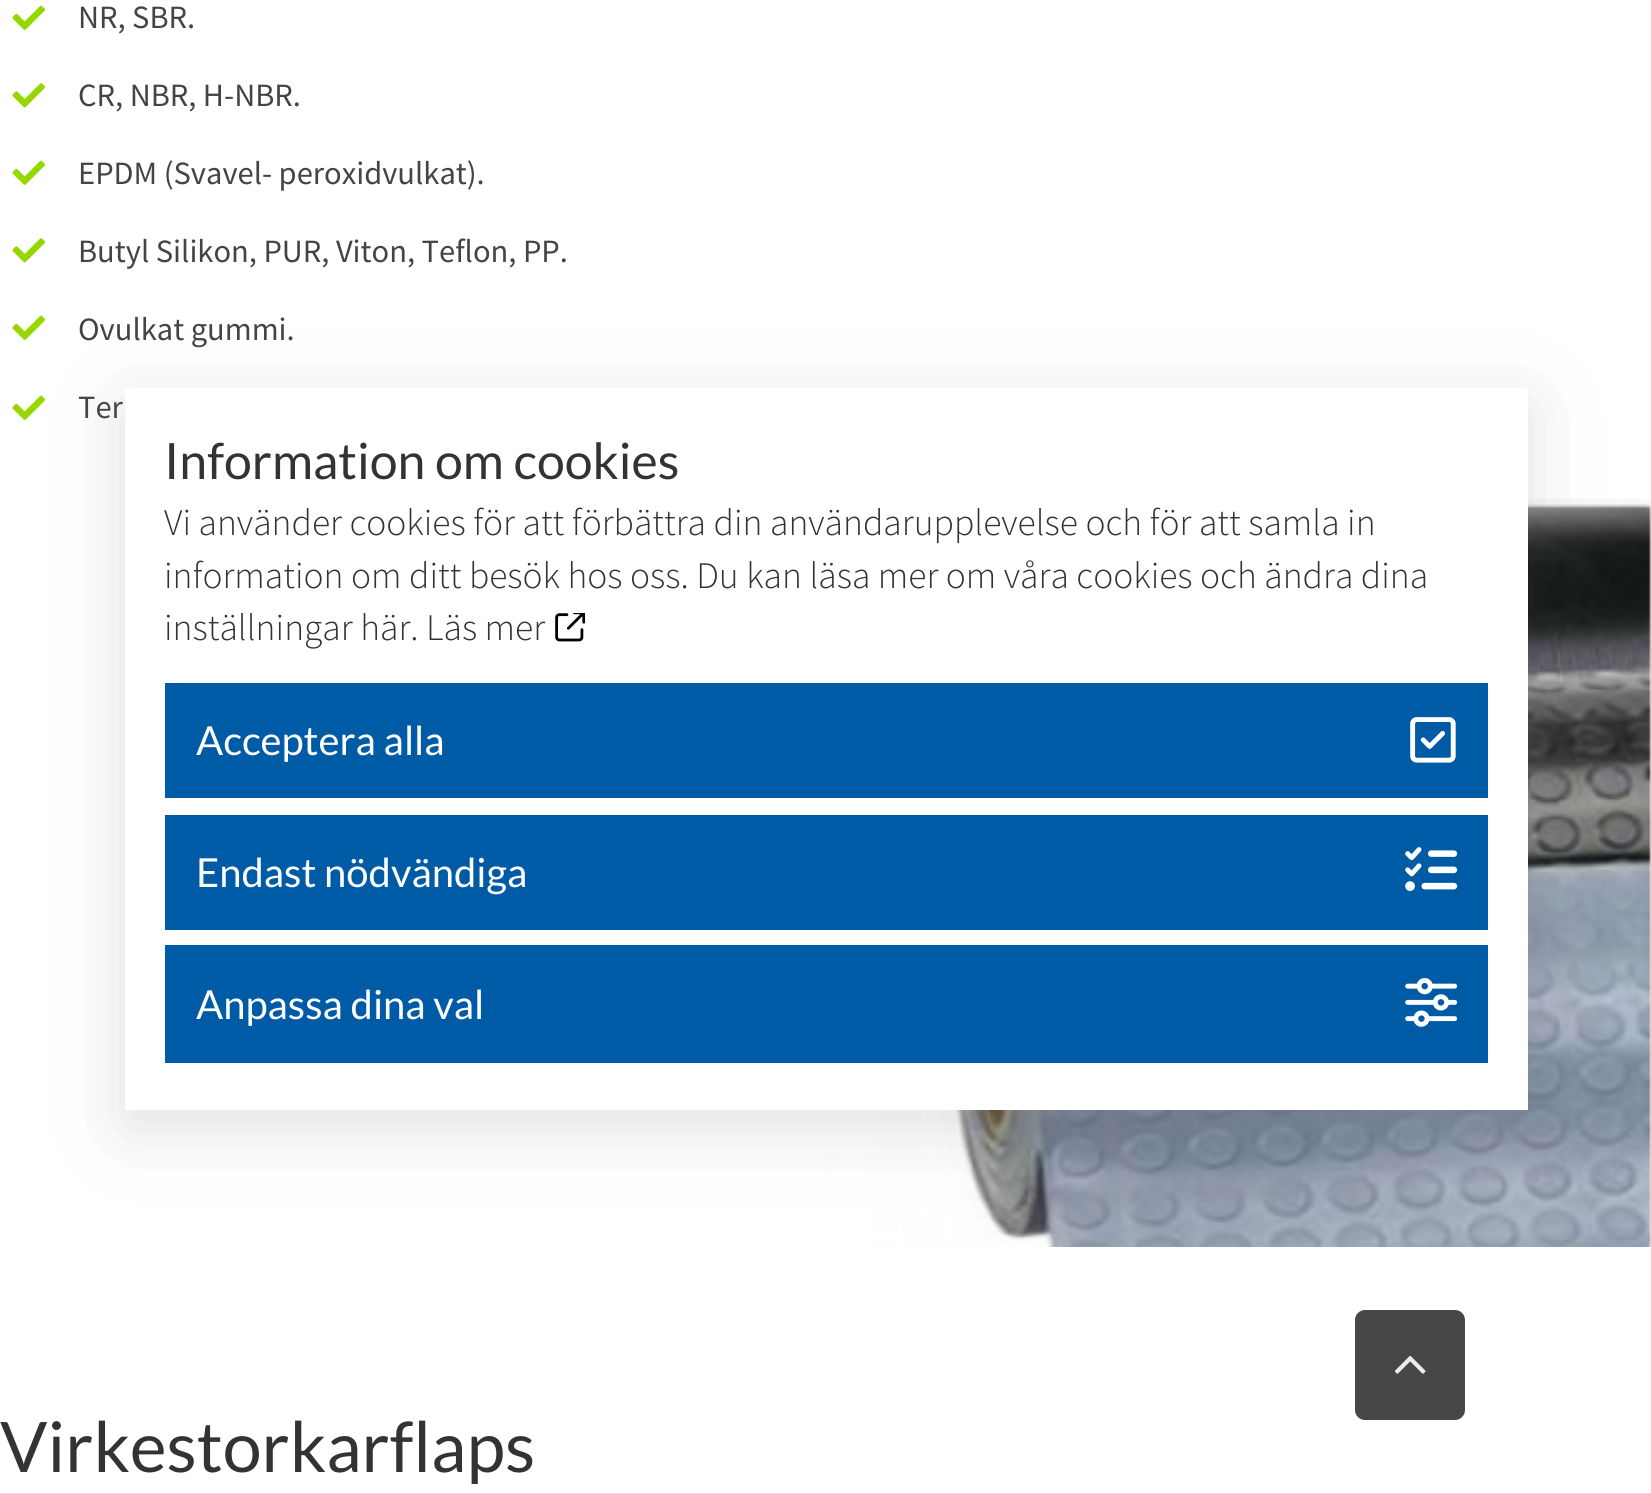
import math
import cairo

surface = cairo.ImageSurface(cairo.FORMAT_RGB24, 1651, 1494)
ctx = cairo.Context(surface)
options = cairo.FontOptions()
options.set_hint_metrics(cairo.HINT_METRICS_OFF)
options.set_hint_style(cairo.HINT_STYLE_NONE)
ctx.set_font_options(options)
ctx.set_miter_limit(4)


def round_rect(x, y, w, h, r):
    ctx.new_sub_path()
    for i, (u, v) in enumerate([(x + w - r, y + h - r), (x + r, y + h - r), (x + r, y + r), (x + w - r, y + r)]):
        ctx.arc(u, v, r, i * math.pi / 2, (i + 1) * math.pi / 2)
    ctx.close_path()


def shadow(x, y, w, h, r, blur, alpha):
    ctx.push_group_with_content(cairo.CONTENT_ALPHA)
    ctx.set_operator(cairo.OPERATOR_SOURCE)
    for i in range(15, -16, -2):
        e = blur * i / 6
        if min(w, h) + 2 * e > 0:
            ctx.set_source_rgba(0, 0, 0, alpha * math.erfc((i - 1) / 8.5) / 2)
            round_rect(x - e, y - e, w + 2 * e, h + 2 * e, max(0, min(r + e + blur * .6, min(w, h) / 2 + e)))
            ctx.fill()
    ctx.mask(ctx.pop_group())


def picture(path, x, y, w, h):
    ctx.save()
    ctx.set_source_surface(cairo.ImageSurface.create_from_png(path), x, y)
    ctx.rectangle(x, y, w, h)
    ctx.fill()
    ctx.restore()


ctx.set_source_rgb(1, 1, 1)
ctx.paint()
picture("img1.png", 12, 5, 33, 25)
ctx.select_font_face("Source Sans Pro")
ctx.set_font_size(32.5)
ctx.set_source_rgb(0.267, 0.267, 0.267)
ctx.move_to(78, 28)
ctx.show_text("NR, SBR.")
picture("img2.png", 12, 83, 33, 25)
ctx.move_to(78, 106)
ctx.show_text("CR, NBR, H-NBR.")
picture("img1.png", 12, 160, 33, 25)
ctx.move_to(78, 184)
ctx.show_text("EPDM (Svavel- peroxidvulkat).")
picture("img2.png", 12, 238, 33, 25)
ctx.move_to(78, 262)
ctx.show_text("Butyl Silikon, PUR, Viton, Teflon, PP.")
picture("img1.png", 12, 315, 33, 25)
ctx.move_to(78, 340)
ctx.show_text("Ovulkat gummi.")
picture("img1.png", 12, 395, 33, 25)
ctx.move_to(78, 418)
ctx.show_text("Ter")
picture("img3.png", 805, 498, 846, 749)
ctx.set_source_rgb(0.878, 0.871, 0.871)
ctx.rectangle(0, 1493, 1651, 1)
ctx.fill()
ctx.select_font_face("Lato")
ctx.set_font_size(69.75)
ctx.set_source_rgb(0.2, 0.2, 0.2)
ctx.move_to(0, 1472)
ctx.show_text("Virkestorkarflaps")
ctx.set_source_rgb(0.392, 0.392, 0.435)
shadow(125, 405, 1403, 723, 0, 36, 0.2)
ctx.set_source_rgb(1, 1, 1)
ctx.rectangle(125, 388, 1403, 722)
ctx.fill()
ctx.set_font_size(50)
ctx.set_source_rgb(0.2, 0.2, 0.2)
ctx.move_to(164, 479)
ctx.show_text("Information om cookies")
ctx.select_font_face("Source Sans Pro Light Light")
ctx.set_font_size(37.5)
ctx.move_to(164, 535)
ctx.show_text("Vi använder cookies för att förbättra din användarupplevelse och för att samla in")
ctx.move_to(164, 588)
ctx.show_text("information om ditt besök hos oss. Du kan läsa mer om våra cookies och ändra dina")
ctx.move_to(164, 640)
ctx.show_text("inställningar här.")
ctx.move_to(426, 640)
ctx.show_text("Läs mer")
picture("img4.png", 555, 613, 30, 29)
ctx.set_source_rgb(0, 0.357, 0.655)
ctx.rectangle(165, 683, 1323, 115)
ctx.fill()
ctx.select_font_face("Lato")
ctx.set_font_size(40)
ctx.set_source_rgb(1, 1, 1)
ctx.move_to(196, 755)
ctx.show_text("Acceptera alla")
picture("img5.png", 1410, 717, 46, 46)
ctx.set_source_rgb(0, 0.357, 0.655)
ctx.rectangle(165, 815, 1323, 115)
ctx.fill()
ctx.set_source_rgb(1, 1, 1)
ctx.move_to(196, 887)
ctx.show_text("Endast nödvändiga")
picture("img6.png", 1405, 847, 53, 44)
ctx.set_source_rgb(0, 0.357, 0.655)
ctx.rectangle(165, 945, 1323, 118)
ctx.fill()
ctx.set_source_rgb(1, 1, 1)
ctx.move_to(196, 1019)
ctx.show_text("Anpassa dina val")
picture("img7.png", 1405, 978, 53, 49)
ctx.set_source_rgb(0.278, 0.278, 0.278)
round_rect(1355, 1310, 110, 110, 10)
ctx.fill()
picture("img8.png", 1394, 1355, 32, 19)
surface.write_to_png("page.png")
